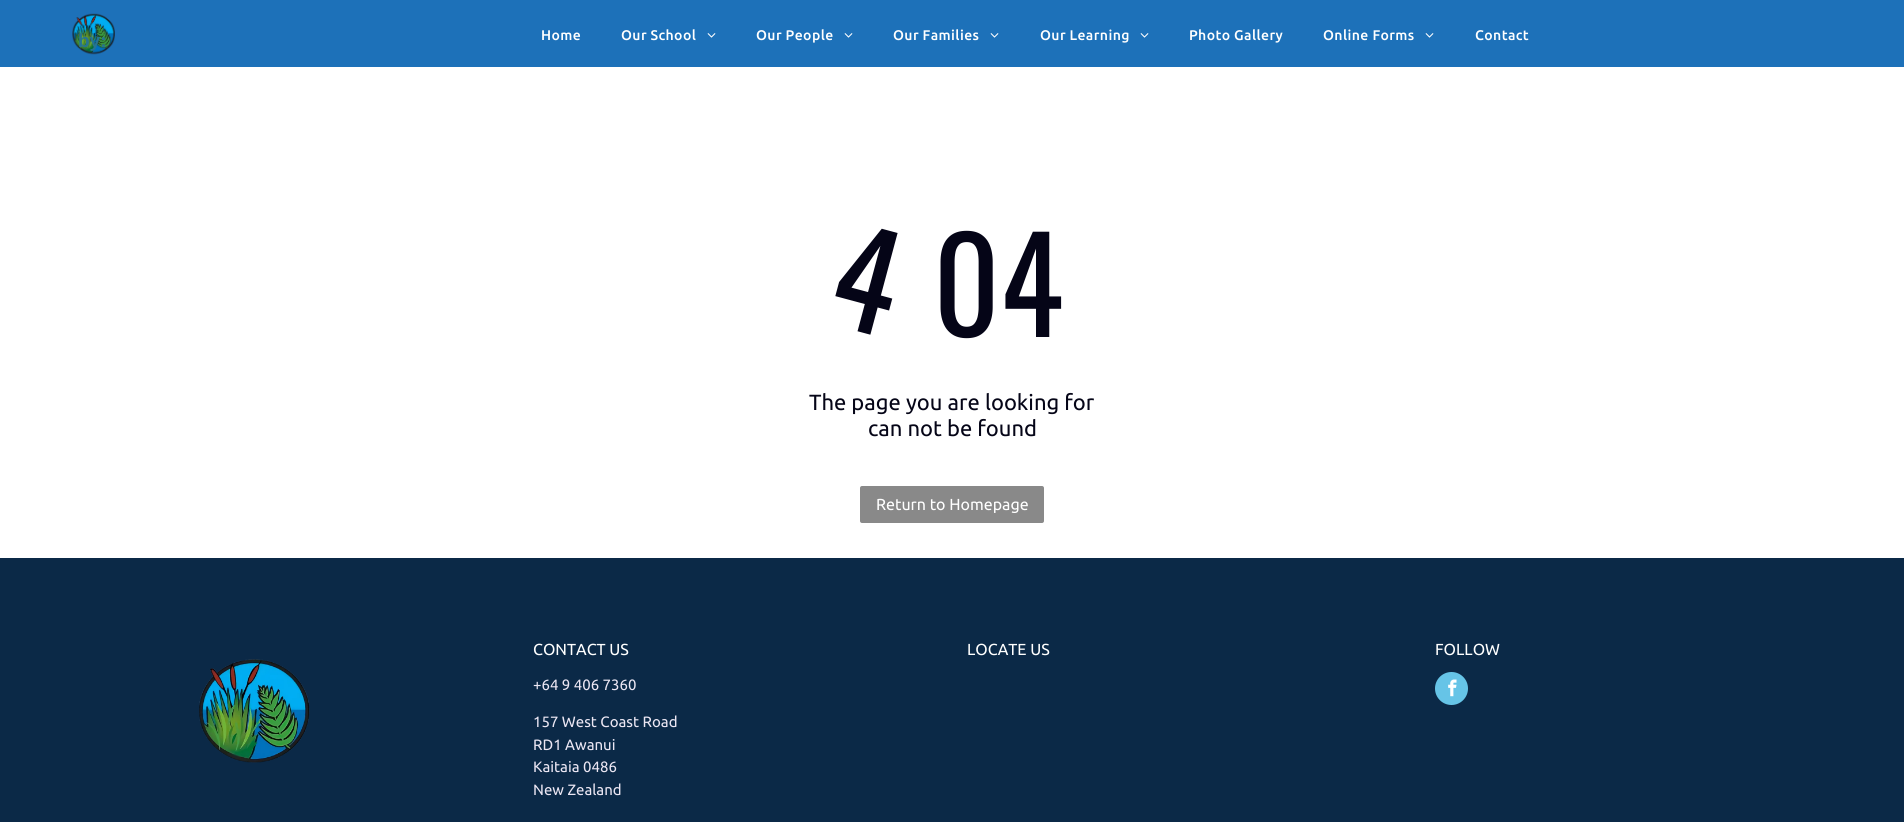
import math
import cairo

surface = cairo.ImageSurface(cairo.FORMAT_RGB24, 1904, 822)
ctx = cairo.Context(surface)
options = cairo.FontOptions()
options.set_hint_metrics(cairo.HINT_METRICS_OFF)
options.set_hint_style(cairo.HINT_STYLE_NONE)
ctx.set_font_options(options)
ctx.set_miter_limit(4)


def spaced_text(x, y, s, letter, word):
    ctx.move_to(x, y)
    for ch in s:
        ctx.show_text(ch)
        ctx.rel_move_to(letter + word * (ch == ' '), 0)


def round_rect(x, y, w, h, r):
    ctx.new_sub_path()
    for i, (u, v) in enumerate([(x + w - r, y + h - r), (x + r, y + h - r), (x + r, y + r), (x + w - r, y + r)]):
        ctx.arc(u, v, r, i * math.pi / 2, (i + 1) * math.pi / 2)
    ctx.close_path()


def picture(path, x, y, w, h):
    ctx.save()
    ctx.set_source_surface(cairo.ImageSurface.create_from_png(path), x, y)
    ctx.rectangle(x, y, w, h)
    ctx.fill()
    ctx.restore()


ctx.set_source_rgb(1, 1, 1)
ctx.paint()
ctx.set_source_rgb(0.114, 0.443, 0.725)
ctx.rectangle(0, 0, 1904, 67)
ctx.fill()
picture("img1.png", 72, 13, 43, 42)
ctx.select_font_face("Liberation Sans", cairo.FONT_SLANT_NORMAL, cairo.FONT_WEIGHT_BOLD)
ctx.set_font_size(19)
ctx.set_source_rgb(0.149, 0.455, 0.569)
ctx.move_to(78, 47)
ctx.show_text("by:")
ctx.select_font_face("Ubuntu Medium")
ctx.set_font_size(14)
ctx.set_source_rgb(1, 1, 1)
spaced_text(541, 40, "Home", 0.4, 0)
spaced_text(621, 40, "Our School", 0.4, 0)
picture("img2.png", 707, 33, 9, 5)
spaced_text(756, 40, "Our People", 0.4, 0)
picture("img2.png", 844, 33, 9, 5)
spaced_text(893, 40, "Our Families", 0.4, 0)
picture("img2.png", 990, 33, 9, 5)
spaced_text(1040, 40, "Our Learning", 0.4, 0)
picture("img2.png", 1140, 33, 9, 5)
spaced_text(1189, 40, "Photo Gallery", 0.4, 0)
spaced_text(1323, 40, "Online Forms", 0.4, 0)
picture("img2.png", 1425, 33, 9, 5)
spaced_text(1475, 40, "Contact", 0.4, 0)
ctx.select_font_face("Oswald")
ctx.set_font_size(130)
ctx.set_source_rgb(0.02, 0.02, 0.09)
ctx.save()
ctx.translate(823, 322)
ctx.rotate(15 * math.pi / 180)
ctx.move_to(0, 0)
ctx.show_text("4")
ctx.restore()
ctx.move_to(933, 337)
ctx.show_text("04")
ctx.select_font_face("Ubuntu")
ctx.set_font_size(22)
ctx.move_to(809, 410)
ctx.show_text("The page you are looking for")
ctx.move_to(868, 436)
ctx.show_text("can not be found")
ctx.set_source_rgb(0.537, 0.537, 0.537)
round_rect(860, 486, 184, 37, 2)
ctx.fill()
ctx.set_font_size(16)
ctx.set_source_rgb(1, 1, 1)
ctx.move_to(876, 510)
ctx.show_text("Return to Homepage")
ctx.set_source_rgb(0.043, 0.161, 0.278)
ctx.rectangle(0, 558, 1904, 264)
ctx.fill()
ctx.set_source_rgb(1, 1, 1)
ctx.move_to(533, 655)
ctx.show_text("CONTACT US")
ctx.set_font_size(15)
ctx.set_source_rgb(0.918, 0.902, 0.953)
ctx.move_to(533, 690)
ctx.show_text("+64 9 406 7360")
ctx.move_to(533, 727)
ctx.show_text("157 West Coast Road")
ctx.move_to(533, 750)
ctx.show_text("RD1 Awanui")
ctx.move_to(533, 772)
ctx.show_text("Kaitaia 0486")
ctx.move_to(533, 795)
ctx.show_text("New Zealand")
ctx.set_font_size(16)
ctx.set_source_rgb(1, 1, 1)
ctx.move_to(967, 655)
ctx.show_text("LOCATE US")
ctx.move_to(1435, 655)
ctx.show_text("FOLLOW")
ctx.set_source_rgb(0.4, 0.769, 0.906)
ctx.new_path()
ctx.arc(1451.5, 688.5, 16.5, 0, 2 * math.pi)
ctx.fill()
picture("img3.png", 1448, 679, 9, 18)
picture("img4.png", 199, 659, 111, 104)
surface.write_to_png("page.png")
